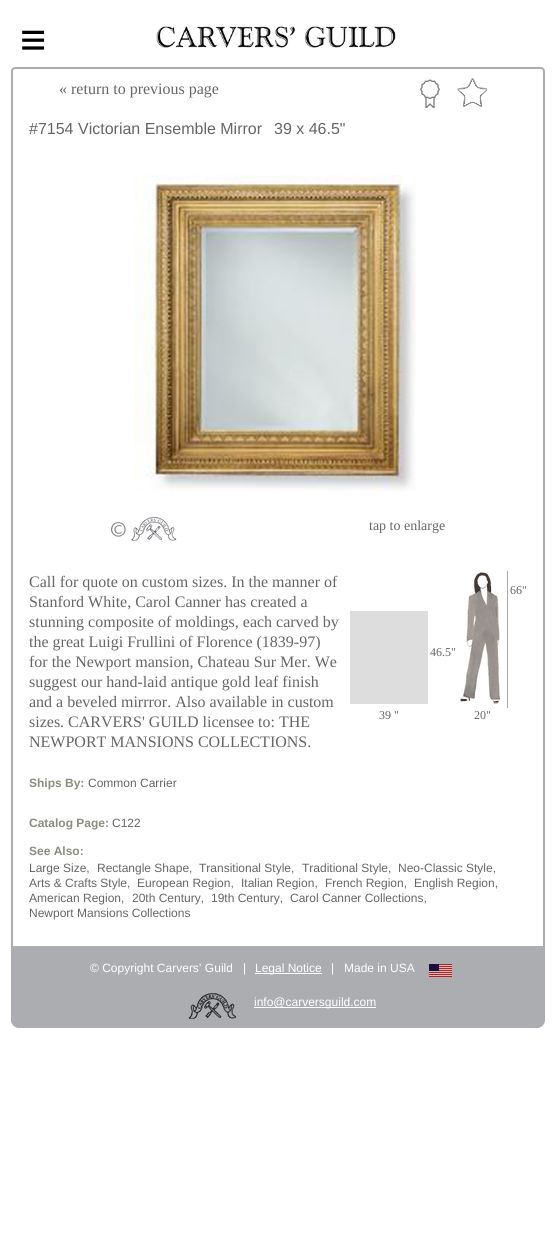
import math
import cairo

surface = cairo.ImageSurface(cairo.FORMAT_RGB24, 556, 1242)
ctx = cairo.Context(surface)
options = cairo.FontOptions()
options.set_hint_metrics(cairo.HINT_METRICS_OFF)
options.set_hint_style(cairo.HINT_STYLE_NONE)
ctx.set_font_options(options)
ctx.set_miter_limit(4)


def picture(path, x, y, w, h):
    ctx.save()
    ctx.set_source_surface(cairo.ImageSurface.create_from_png(path), x, y)
    ctx.rectangle(x, y, w, h)
    ctx.fill()
    ctx.restore()


ctx.set_source_rgb(1, 1, 1)
ctx.paint()
picture("img1.png", 156, 26, 240, 22)
ctx.select_font_face("Liberation Sans")
ctx.set_font_size(45)
ctx.set_source_rgb(0, 0, 0)
ctx.move_to(20, 55)
ctx.show_text("≡")
ctx.new_path()
ctx.move_to(15, 68)
ctx.line_to(541, 68)
ctx.curve_to(542.5, 68, 544, 69.5, 544, 71)
ctx.line_to(544, 947)
ctx.line_to(12, 947)
ctx.line_to(12, 71)
ctx.curve_to(12, 69.5, 13.5, 68, 15, 68)
ctx.close_path()
ctx.set_source_rgb(0.671, 0.678, 0.69)
ctx.stroke()
ctx.select_font_face("Liberation Serif")
ctx.set_font_size(16)
ctx.set_source_rgb(0.4, 0.4, 0.4)
ctx.move_to(59, 94)
ctx.show_text("« return to previous page")
ctx.select_font_face("Liberation Sans")
ctx.move_to(29, 134)
ctx.show_text("#7154")
ctx.move_to(78, 134)
ctx.show_text("Victorian Ensemble Mirror")
ctx.move_to(274, 134)
ctx.show_text("39 x 46.5\"")
picture("img2.png", 134, 175, 282, 317)
picture("img3.png", 111, 522, 15, 15)
picture("img4.png", 131, 516, 46, 25)
ctx.select_font_face("Liberation Serif")
ctx.set_font_size(14)
ctx.move_to(369, 530)
ctx.show_text("tap to enlarge")
picture("img5.png", 420, 79, 20, 29)
picture("img6.png", 457, 78, 30, 29)
ctx.set_font_size(16)
ctx.move_to(29, 587)
ctx.show_text("Call for quote on custom sizes. In the manner of")
ctx.move_to(29, 607)
ctx.show_text("Stanford White, Carol Canner has created a")
ctx.move_to(29, 627)
ctx.show_text("stunning composite of moldings, each carved by")
ctx.move_to(29, 647)
ctx.show_text("the great Luigi Frullini of Florence (1839-97)")
ctx.move_to(29, 667)
ctx.show_text("for the Newport mansion, Chateau Sur Mer. We")
ctx.move_to(29, 687)
ctx.show_text("suggest our hand-laid antique gold leaf finish")
ctx.move_to(29, 707)
ctx.show_text("and a beveled mirrror. Also available in custom")
ctx.move_to(29, 727)
ctx.show_text("sizes. CARVERS' GUILD licensee to: THE")
ctx.move_to(29, 747)
ctx.show_text("NEWPORT MANSIONS COLLECTIONS.")
ctx.set_source_rgb(0.667, 0.667, 0.667)
ctx.rectangle(507, 571, 1, 137)
ctx.fill()
picture("img7.png", 460, 572, 40, 132)
ctx.set_font_size(12)
ctx.set_source_rgb(0.4, 0.4, 0.4)
ctx.move_to(510, 594)
ctx.show_text("66\"")
ctx.set_source_rgb(0.867, 0.867, 0.867)
ctx.rectangle(350, 611, 78, 93)
ctx.fill()
ctx.set_source_rgb(0.4, 0.4, 0.4)
ctx.move_to(430, 656)
ctx.show_text("46.5\"")
ctx.move_to(379, 719)
ctx.show_text("39 \"")
ctx.move_to(474, 719)
ctx.show_text("20\"")
ctx.select_font_face("Liberation Sans", cairo.FONT_SLANT_NORMAL, cairo.FONT_WEIGHT_BOLD)
ctx.set_source_rgb(0.541, 0.549, 0.494)
ctx.move_to(29, 787)
ctx.show_text("Ships By:")
ctx.select_font_face("Liberation Sans")
ctx.set_source_rgb(0.4, 0.4, 0.4)
ctx.move_to(88, 787)
ctx.show_text("Common Carrier")
ctx.select_font_face("Liberation Sans", cairo.FONT_SLANT_NORMAL, cairo.FONT_WEIGHT_BOLD)
ctx.set_source_rgb(0.541, 0.549, 0.494)
ctx.move_to(29, 827)
ctx.show_text("Catalog Page:")
ctx.select_font_face("Liberation Sans")
ctx.set_source_rgb(0.4, 0.4, 0.4)
ctx.move_to(112, 827)
ctx.show_text("C122")
ctx.select_font_face("Liberation Sans", cairo.FONT_SLANT_NORMAL, cairo.FONT_WEIGHT_BOLD)
ctx.set_source_rgb(0.541, 0.549, 0.494)
ctx.move_to(29, 855)
ctx.show_text("See Also:")
ctx.select_font_face("Liberation Sans")
ctx.set_source_rgb(0.4, 0.4, 0.4)
ctx.move_to(29, 872)
ctx.show_text("Large Size,")
ctx.move_to(97, 872)
ctx.show_text("Rectangle Shape,")
ctx.move_to(199, 872)
ctx.show_text("Transitional Style,")
ctx.move_to(302, 872)
ctx.show_text("Traditional Style,")
ctx.move_to(398, 872)
ctx.show_text("Neo-Classic Style,")
ctx.move_to(29, 887)
ctx.show_text("Arts & Crafts Style,")
ctx.move_to(137, 887)
ctx.show_text("European Region,")
ctx.move_to(241, 887)
ctx.show_text("Italian Region,")
ctx.move_to(325, 887)
ctx.show_text("French Region,")
ctx.move_to(414, 887)
ctx.show_text("English Region,")
ctx.move_to(29, 902)
ctx.show_text("American Region,")
ctx.move_to(132, 902)
ctx.show_text("20th Century,")
ctx.move_to(211, 902)
ctx.show_text("19th Century,")
ctx.move_to(290, 902)
ctx.show_text("Carol Canner Collections,")
ctx.move_to(29, 917)
ctx.show_text("Newport Mansions Collections")
ctx.set_source_rgb(0.671, 0.678, 0.69)
ctx.rectangle(11, 948, 534, 80)
ctx.fill()
picture("img8.png", 538, 1021, 7, 7)
picture("img9.png", 11, 1021, 7, 7)
ctx.set_source_rgb(1, 1, 1)
ctx.move_to(90, 972)
ctx.show_text("© Copyright Carvers’ Guild")
ctx.move_to(243, 972)
ctx.show_text("|")
ctx.rectangle(255, 973, 67, 1)
ctx.fill()
ctx.move_to(255, 972)
ctx.show_text("Legal Notice")
ctx.move_to(331, 972)
ctx.show_text("|")
ctx.move_to(344, 972)
ctx.show_text("Made in USA")
picture("img10.png", 429, 964, 23, 13)
picture("img11.png", 188, 993, 48, 26)
ctx.rectangle(254, 1007, 122, 1)
ctx.fill()
ctx.move_to(254, 1006)
ctx.show_text("info@carversguild.com")
surface.write_to_png("page.png")
